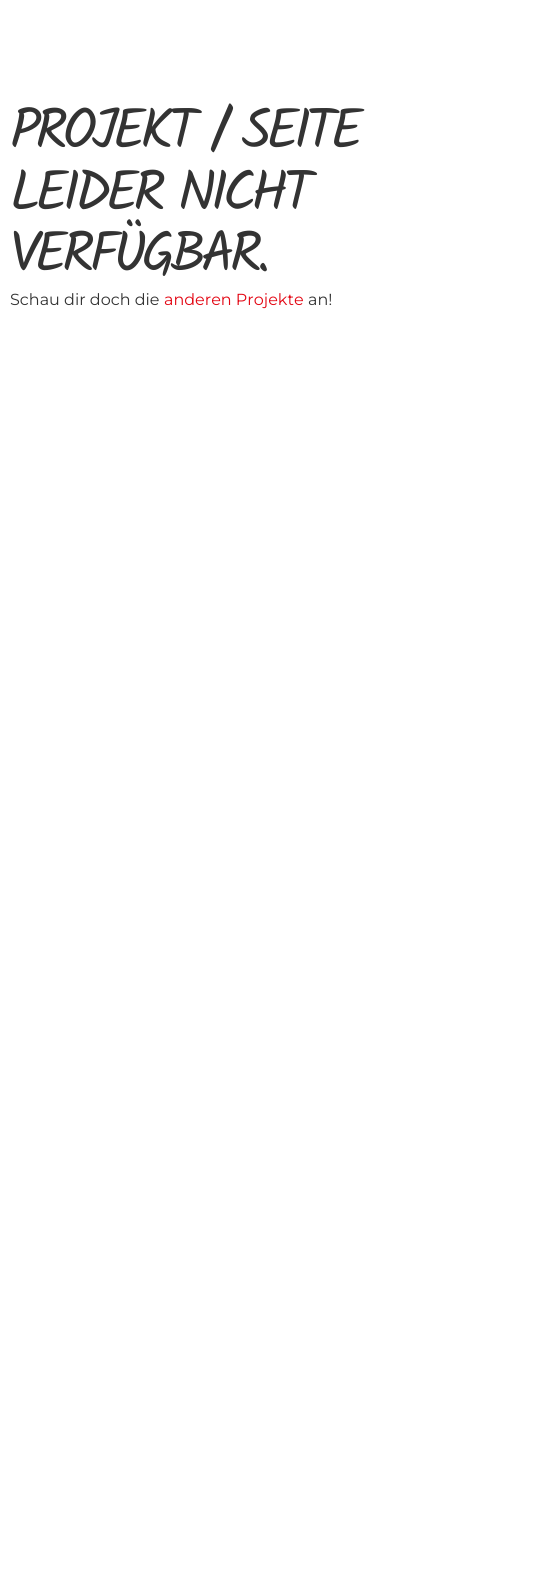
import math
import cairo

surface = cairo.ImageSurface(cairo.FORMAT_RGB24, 537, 1576)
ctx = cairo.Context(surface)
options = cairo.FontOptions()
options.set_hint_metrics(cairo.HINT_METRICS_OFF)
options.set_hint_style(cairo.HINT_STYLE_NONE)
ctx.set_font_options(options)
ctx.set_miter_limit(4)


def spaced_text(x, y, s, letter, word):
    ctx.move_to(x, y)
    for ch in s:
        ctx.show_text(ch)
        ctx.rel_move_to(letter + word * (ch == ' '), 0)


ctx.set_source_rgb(1, 1, 1)
ctx.paint()
ctx.select_font_face("Kalam")
ctx.set_font_size(56)
ctx.set_source_rgb(0.2, 0.2, 0.2)
spaced_text(10, 148, "PROJEKT / SEITE", -5.25, 0)
spaced_text(10, 210, "LEIDER NICHT", -5.25, 0)
spaced_text(10, 271, "VERFÜGBAR.", -5.25, 0)
ctx.select_font_face("Montserrat Thin")
ctx.set_font_size(16)
ctx.move_to(10, 305)
ctx.show_text("Schau dir doch die")
ctx.set_source_rgb(0.89, 0.024, 0.075)
ctx.move_to(164, 305)
ctx.show_text("anderen Projekte")
ctx.set_source_rgb(0.2, 0.2, 0.2)
ctx.move_to(308, 305)
ctx.show_text("an!")
surface.write_to_png("page.png")
